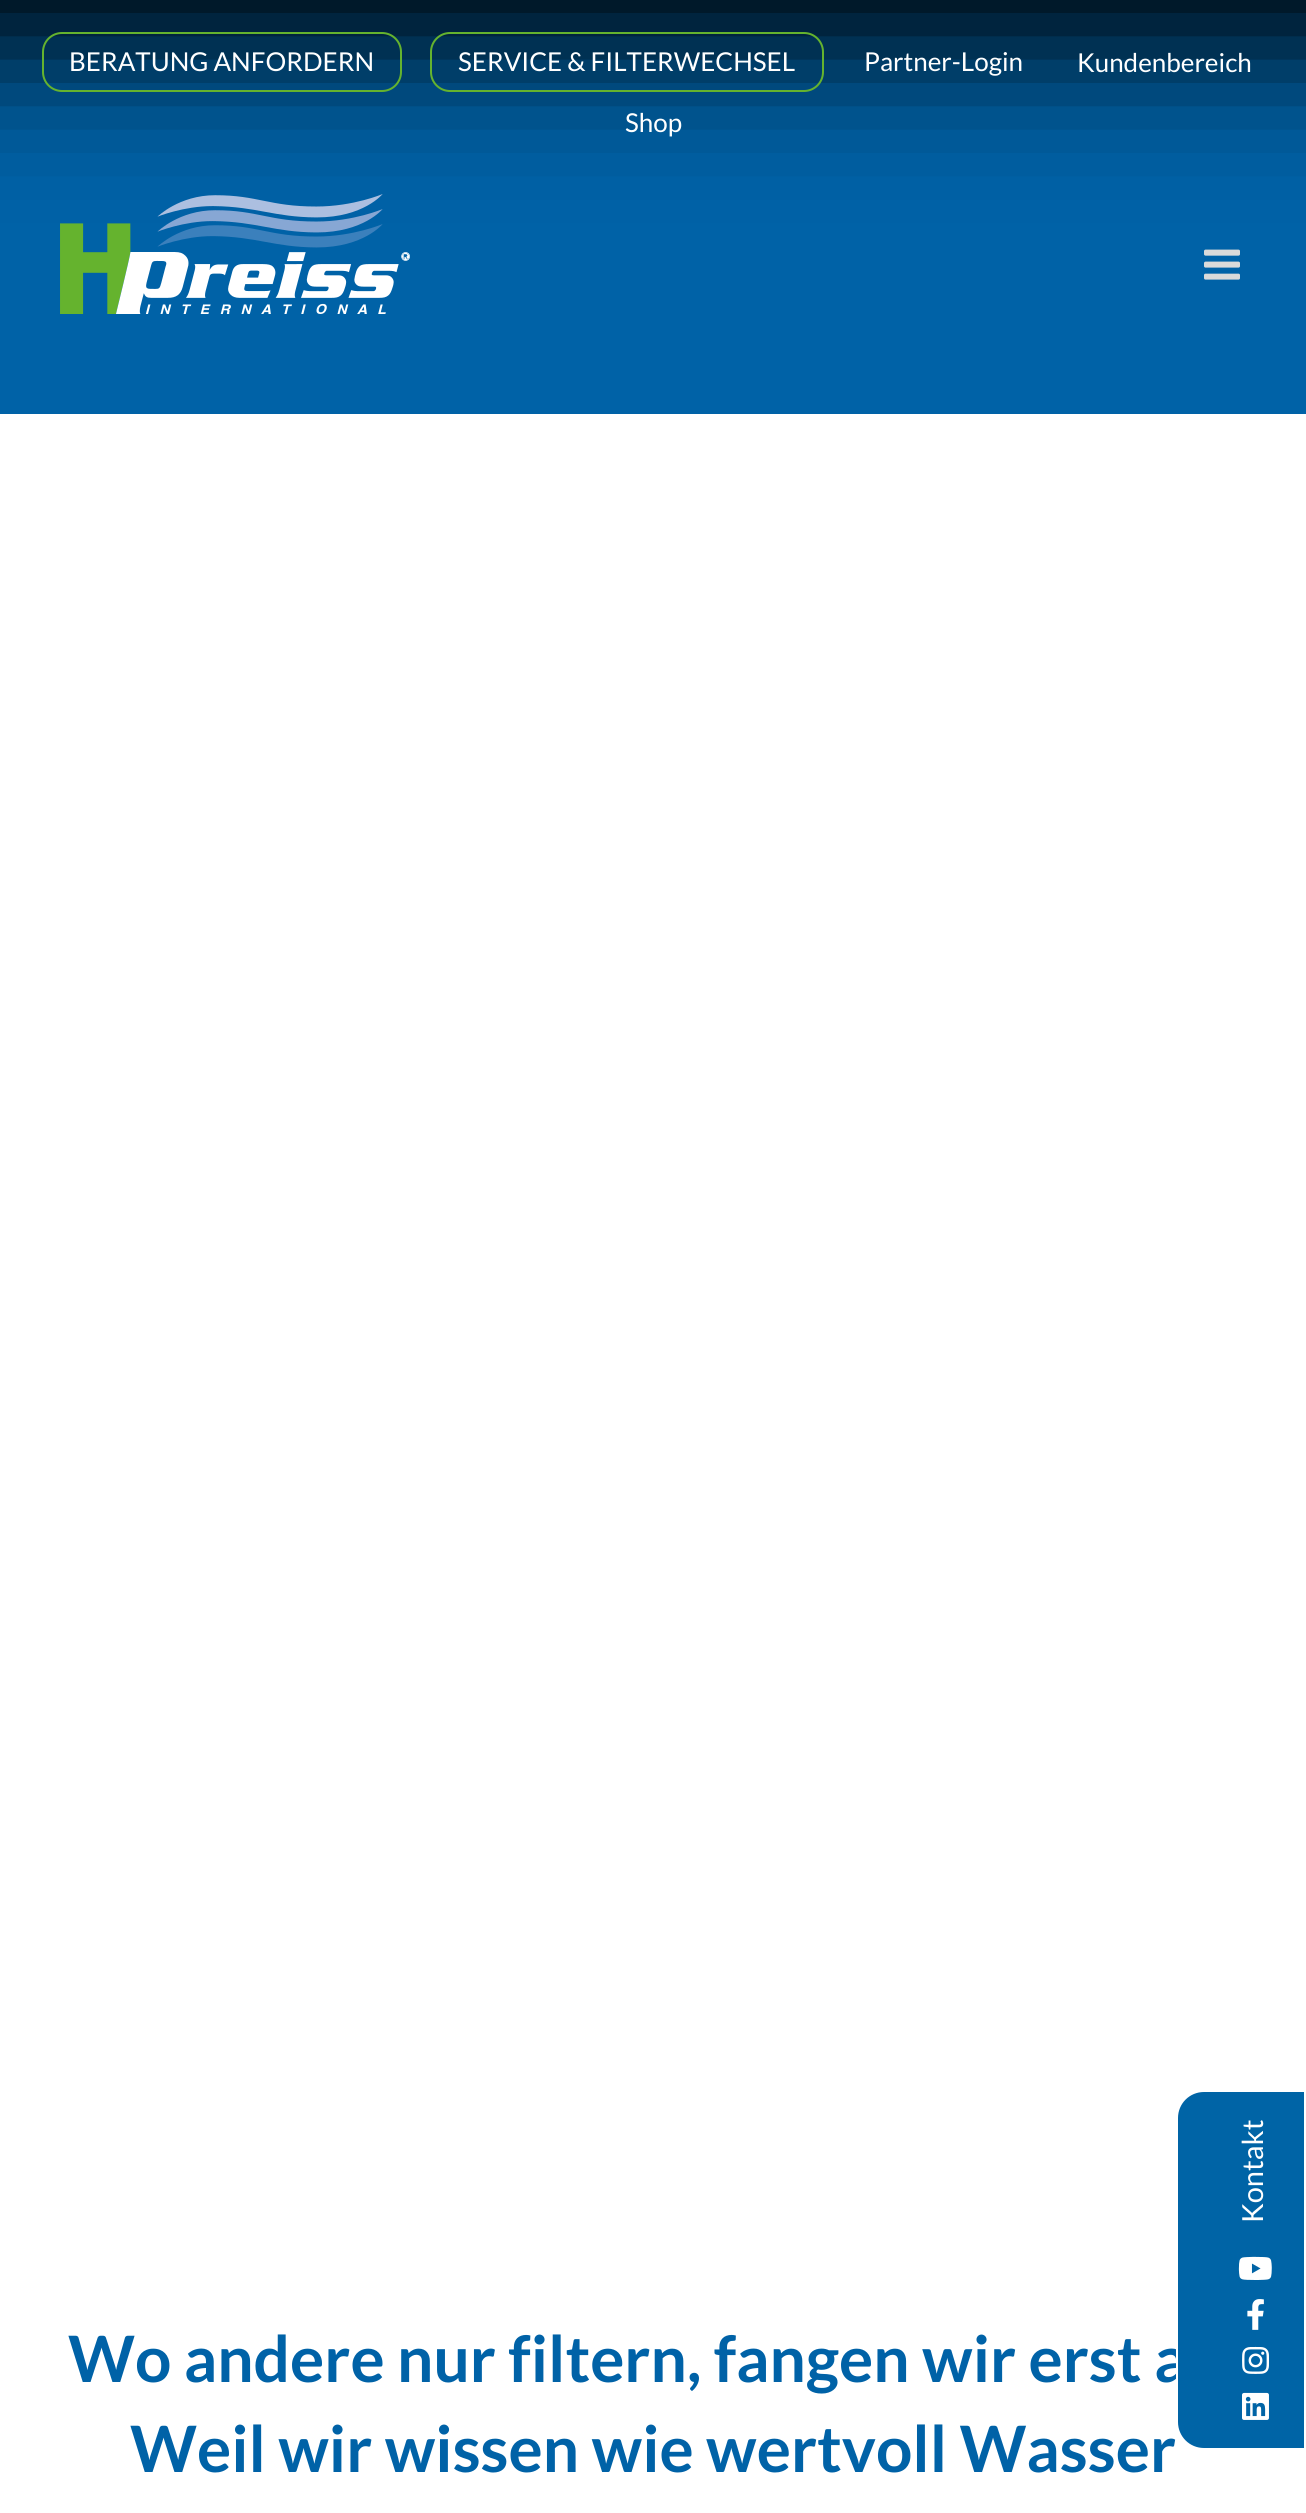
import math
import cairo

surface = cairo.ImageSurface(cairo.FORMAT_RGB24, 1306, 2513)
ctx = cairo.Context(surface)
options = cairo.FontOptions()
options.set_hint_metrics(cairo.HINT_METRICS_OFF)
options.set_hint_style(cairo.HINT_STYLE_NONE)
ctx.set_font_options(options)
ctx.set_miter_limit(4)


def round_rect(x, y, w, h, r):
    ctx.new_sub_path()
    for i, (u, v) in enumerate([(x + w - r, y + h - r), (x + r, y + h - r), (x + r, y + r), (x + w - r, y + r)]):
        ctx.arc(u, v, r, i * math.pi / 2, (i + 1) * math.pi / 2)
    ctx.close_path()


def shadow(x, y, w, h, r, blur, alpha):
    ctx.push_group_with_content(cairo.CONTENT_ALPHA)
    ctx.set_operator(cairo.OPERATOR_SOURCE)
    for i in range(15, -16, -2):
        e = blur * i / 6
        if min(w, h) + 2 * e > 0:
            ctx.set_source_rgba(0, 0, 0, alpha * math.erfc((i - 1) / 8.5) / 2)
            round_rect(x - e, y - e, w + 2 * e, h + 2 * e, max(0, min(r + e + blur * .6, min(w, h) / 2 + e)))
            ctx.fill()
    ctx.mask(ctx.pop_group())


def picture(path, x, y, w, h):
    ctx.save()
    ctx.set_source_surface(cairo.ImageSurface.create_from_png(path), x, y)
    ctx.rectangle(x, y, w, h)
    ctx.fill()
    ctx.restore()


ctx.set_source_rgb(1, 1, 1)
ctx.paint()
ctx.set_source_rgb(0, 0.384, 0.655)
ctx.rectangle(0, 0, 1306, 414)
ctx.fill()
ctx.set_source_rgb(0, 0, 0)
shadow(-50, -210, 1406, 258, 0, 70, 1)
round_rect(43, 33, 358, 58, 19)
ctx.set_source_rgb(0.396, 0.702, 0.18)
ctx.stroke()
ctx.select_font_face("Lato")
ctx.set_font_size(26)
ctx.set_source_rgb(1, 1, 1)
ctx.move_to(69, 71)
ctx.show_text("BERATUNG ANFORDERN")
round_rect(431, 33, 392, 58, 19)
ctx.set_source_rgb(0.396, 0.702, 0.18)
ctx.stroke()
ctx.set_source_rgb(1, 1, 1)
ctx.move_to(458, 71)
ctx.show_text("SERVICE & FILTERWECHSEL")
ctx.move_to(864, 71)
ctx.show_text("Partner-Login")
ctx.move_to(1077, 72)
ctx.show_text("Kundenbereich")
ctx.move_to(625, 132)
ctx.show_text("Shop")
picture("img1.png", 60, 194, 350, 120)
picture("img2.png", 1204, 249, 36, 31)
ctx.select_font_face("Lato", cairo.FONT_SLANT_NORMAL, cairo.FONT_WEIGHT_BOLD)
ctx.set_font_size(64)
ctx.set_source_rgb(0, 0.384, 0.655)
ctx.move_to(68, 2382)
ctx.show_text("Wo andere nur filtern, fangen wir erst a")
ctx.set_source_rgb(0, 0.392, 0.651)
ctx.new_path()
ctx.move_to(1204, 2091)
ctx.line_to(1305, 2091)
ctx.line_to(1305, 2449)
ctx.line_to(1204, 2449)
ctx.curve_to(1189, 2449, 1177, 2437, 1177, 2422)
ctx.line_to(1177, 2118)
ctx.curve_to(1177, 2103, 1189, 2091, 1204, 2091)
ctx.close_path()
ctx.fill_preserve()
ctx.set_source_rgb(1, 1, 1)
ctx.stroke()
ctx.select_font_face("Lato")
ctx.set_font_size(29)
ctx.save()
ctx.translate(1263, 2223)
ctx.rotate(-90 * math.pi / 180)
ctx.move_to(0, 0)
ctx.show_text("Kontakt")
ctx.restore()
picture("img3.png", 1238, 2256, 34, 24)
picture("img4.png", 1247, 2299, 17, 31)
picture("img5.png", 1242, 2346, 27, 28)
picture("img6.png", 1242, 2392, 27, 28)
ctx.select_font_face("Lato", cairo.FONT_SLANT_NORMAL, cairo.FONT_WEIGHT_BOLD)
ctx.set_font_size(64)
ctx.set_source_rgb(0, 0.384, 0.655)
ctx.move_to(130, 2472)
ctx.show_text("Weil wir wissen wie wertvoll Wasser")
surface.write_to_png("page.png")
